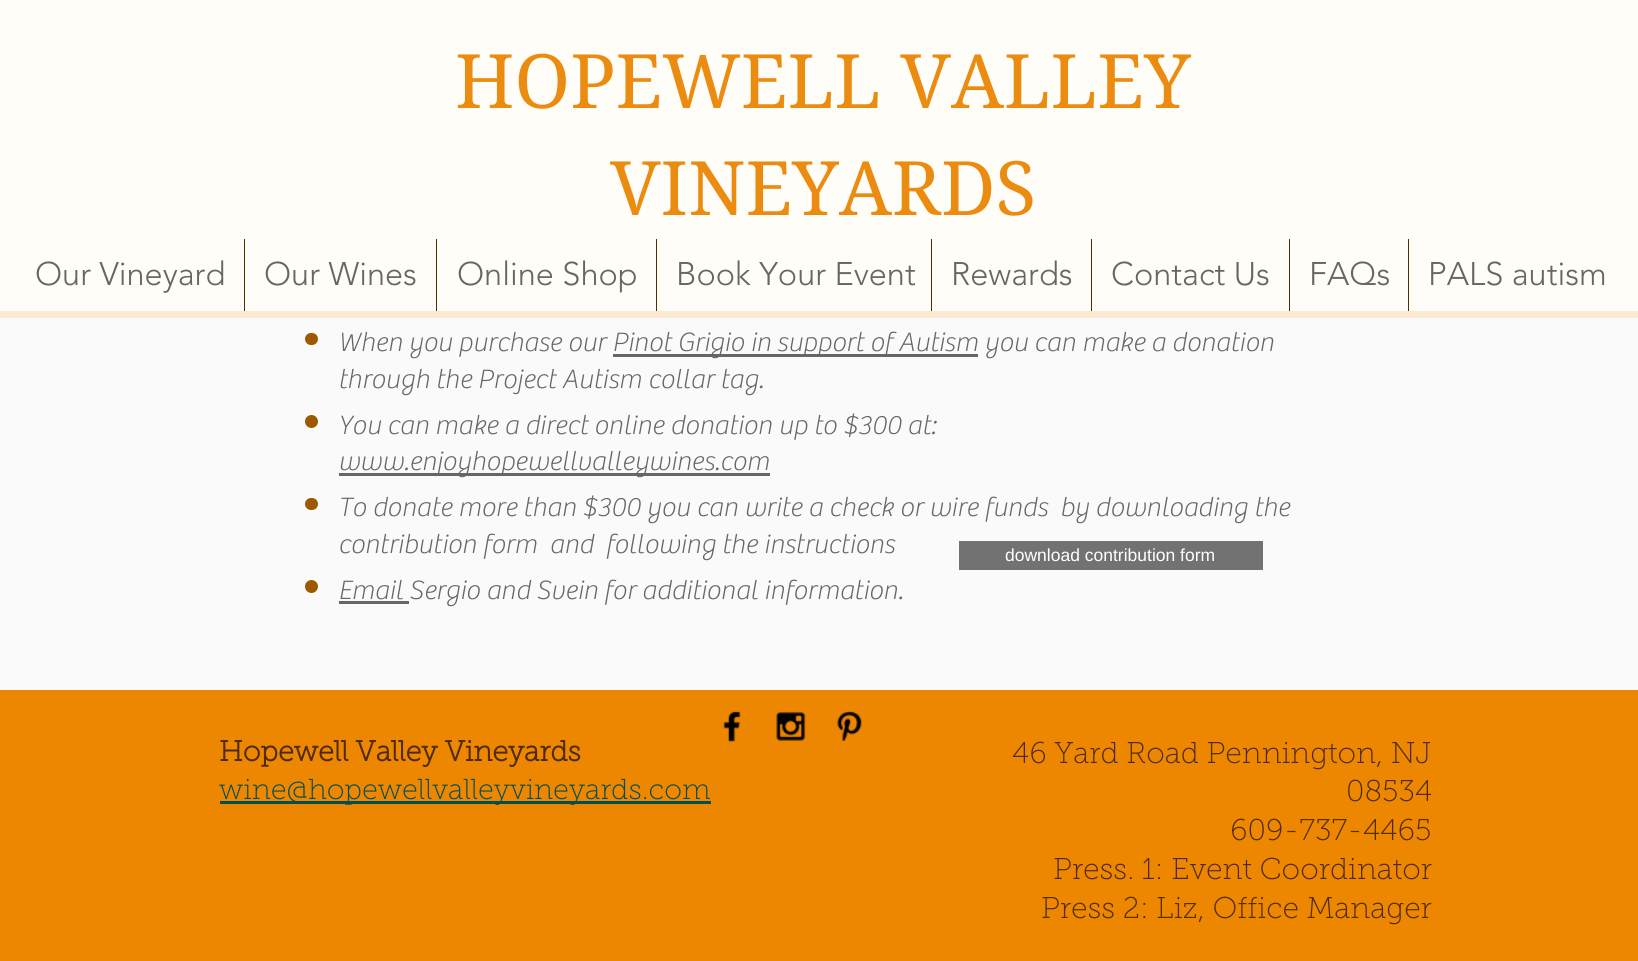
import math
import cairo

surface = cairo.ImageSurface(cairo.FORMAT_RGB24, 1638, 961)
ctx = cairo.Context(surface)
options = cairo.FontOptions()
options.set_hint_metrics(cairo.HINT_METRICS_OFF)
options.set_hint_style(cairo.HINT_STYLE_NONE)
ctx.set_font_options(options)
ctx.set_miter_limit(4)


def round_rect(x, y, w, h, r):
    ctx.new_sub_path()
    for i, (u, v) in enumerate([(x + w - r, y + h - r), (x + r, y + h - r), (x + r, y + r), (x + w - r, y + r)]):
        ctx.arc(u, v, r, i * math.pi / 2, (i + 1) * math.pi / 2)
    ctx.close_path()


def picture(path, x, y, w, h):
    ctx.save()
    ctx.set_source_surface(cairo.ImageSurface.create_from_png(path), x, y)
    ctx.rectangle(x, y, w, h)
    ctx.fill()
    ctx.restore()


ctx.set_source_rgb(0.98, 0.98, 0.98)
ctx.paint()
ctx.set_source_rgb(1, 0.992, 0.969)
ctx.rectangle(0, 0, 1638, 311)
ctx.fill()
ctx.select_font_face("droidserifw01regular")
ctx.set_font_size(75)
ctx.set_source_rgb(0.918, 0.549, 0.067)
ctx.move_to(455, 108)
ctx.show_text("HOPEWELL VALLEY")
ctx.move_to(610, 215)
ctx.show_text("VINEYARDS")
ctx.select_font_face("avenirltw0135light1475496 Light")
ctx.set_font_size(32.5)
ctx.set_source_rgb(0.4, 0.4, 0.4)
ctx.move_to(35, 285)
ctx.show_text("Our Vineyard")
ctx.set_source_rgb(0.31, 0.173, 0)
ctx.rectangle(244, 239, 1, 72)
ctx.fill()
ctx.set_source_rgb(0.4, 0.4, 0.4)
ctx.move_to(264, 285)
ctx.show_text("Our Wines")
ctx.set_source_rgb(0.31, 0.173, 0)
ctx.rectangle(436, 239, 1, 72)
ctx.fill()
ctx.set_source_rgb(0.4, 0.4, 0.4)
ctx.move_to(457, 285)
ctx.show_text("Online Shop")
ctx.set_source_rgb(0.31, 0.173, 0)
ctx.rectangle(656, 239, 1, 72)
ctx.fill()
ctx.set_source_rgb(0.4, 0.4, 0.4)
ctx.move_to(676, 285)
ctx.show_text("Book Your Event")
ctx.set_source_rgb(0.31, 0.173, 0)
ctx.rectangle(931, 239, 1, 72)
ctx.fill()
ctx.set_source_rgb(0.4, 0.4, 0.4)
ctx.move_to(951, 285)
ctx.show_text("Rewards")
ctx.set_source_rgb(0.31, 0.173, 0)
ctx.rectangle(1091, 239, 1, 72)
ctx.fill()
ctx.set_source_rgb(0.4, 0.4, 0.4)
ctx.move_to(1111, 285)
ctx.show_text("Contact Us")
ctx.set_source_rgb(0.31, 0.173, 0)
ctx.rectangle(1289, 239, 1, 72)
ctx.fill()
ctx.set_source_rgb(0.4, 0.4, 0.4)
ctx.move_to(1309, 285)
ctx.show_text("FAQs")
ctx.set_source_rgb(0.31, 0.173, 0)
ctx.rectangle(1408, 239, 1, 72)
ctx.fill()
ctx.set_source_rgb(0.4, 0.4, 0.4)
ctx.move_to(1428, 285)
ctx.show_text("PALS autism")
ctx.set_source_rgb(0.98, 0.914, 0.827)
ctx.rectangle(0, 311, 1638, 7)
ctx.fill()
ctx.set_source_rgb(0.62, 0.349, 0)
round_rect(305, 333, 13, 12, 6)
ctx.fill()
ctx.select_font_face("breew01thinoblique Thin")
ctx.set_font_size(27.5)
ctx.set_source_rgb(0.4, 0.4, 0.4)
ctx.move_to(338, 351)
ctx.show_text("When you purchase our")
ctx.rectangle(613, 354, 365, 3)
ctx.fill()
ctx.move_to(612, 351)
ctx.show_text("Pinot Grigio in support of Autism you can make a donation")
ctx.move_to(338, 388)
ctx.show_text("through the Project Autism collar tag.")
ctx.set_source_rgb(0.62, 0.349, 0)
ctx.new_path()
ctx.arc(311.5, 421.5, 6.5, 0, 2 * math.pi)
ctx.fill()
ctx.set_source_rgb(0.4, 0.4, 0.4)
ctx.move_to(338, 434)
ctx.show_text("You can make a direct online donation up to $300 at:")
ctx.rectangle(339, 473, 431, 3)
ctx.fill()
ctx.move_to(338, 470)
ctx.show_text("www.enjoyhopewellvalleywines.com")
ctx.set_source_rgb(0.62, 0.349, 0)
round_rect(305, 498, 13, 12, 6)
ctx.fill()
ctx.set_source_rgb(0.4, 0.4, 0.4)
ctx.move_to(338, 516)
ctx.show_text("To donate more than $300 you can write a check or wire funds  by downloading the")
ctx.move_to(338, 553)
ctx.show_text("contribution form  and  following the instructions")
ctx.set_source_rgb(0.62, 0.349, 0)
ctx.new_path()
ctx.arc(311.5, 586.5, 6.5, 0, 2 * math.pi)
ctx.fill()
ctx.set_source_rgb(0.4, 0.4, 0.4)
ctx.rectangle(339, 601, 70, 3)
ctx.fill()
ctx.move_to(338, 599)
ctx.show_text("Email Sergio and Svein for additional information.")
ctx.set_source_rgb(0.447, 0.447, 0.447)
ctx.rectangle(959, 541, 304, 29)
ctx.fill()
ctx.select_font_face("Liberation Sans")
ctx.set_font_size(17.5)
ctx.set_source_rgb(1, 1, 1)
ctx.move_to(1005, 561)
ctx.show_text("download contribution form")
ctx.set_source_rgb(0.929, 0.525, 0)
ctx.rectangle(0, 690, 1638, 271)
ctx.fill()
picture("img1.png", 723, 711, 18, 32)
picture("img2.png", 776, 711, 30, 30)
picture("img3.png", 837, 711, 25, 31)
ctx.select_font_face("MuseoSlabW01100", cairo.FONT_SLANT_NORMAL, cairo.FONT_WEIGHT_BOLD)
ctx.set_font_size(28.75)
ctx.set_source_rgb(0.31, 0.173, 0)
ctx.move_to(219, 761)
ctx.show_text("Hopewell Valley Vineyards")
ctx.set_source_rgb(0.008, 0.306, 0.314)
ctx.rectangle(220, 801, 491, 3)
ctx.fill()
ctx.select_font_face("MuseoSlabW01100 Thin")
ctx.move_to(219, 799)
ctx.show_text("wine@hopewellvalleyvineyards.com")
ctx.set_font_size(30)
ctx.set_source_rgb(0.31, 0.173, 0)
ctx.move_to(1012, 763)
ctx.show_text("46 Yard Road Pennington, NJ")
ctx.move_to(1346, 801)
ctx.show_text("08534")
ctx.move_to(1230, 840)
ctx.show_text("609-737-4465")
ctx.move_to(1053, 879)
ctx.show_text("Press. 1: Event Coordinator")
ctx.move_to(1041, 918)
ctx.show_text("Press 2: Liz, Office Manager")
surface.write_to_png("page.png")
